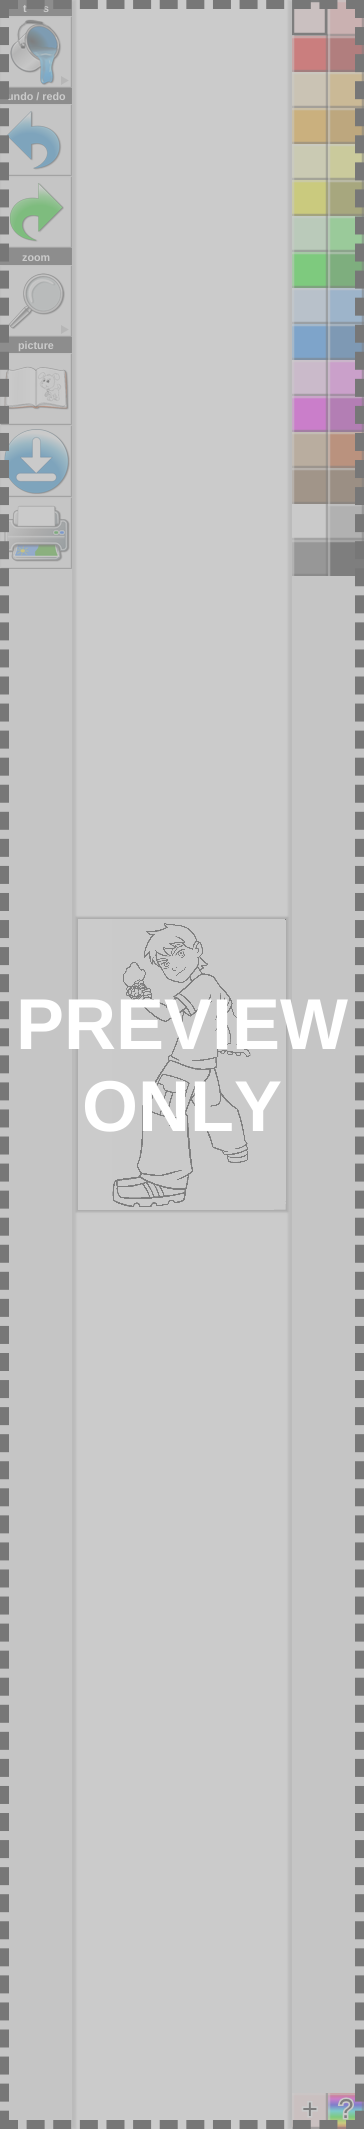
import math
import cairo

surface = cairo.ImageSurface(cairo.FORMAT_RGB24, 364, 2129)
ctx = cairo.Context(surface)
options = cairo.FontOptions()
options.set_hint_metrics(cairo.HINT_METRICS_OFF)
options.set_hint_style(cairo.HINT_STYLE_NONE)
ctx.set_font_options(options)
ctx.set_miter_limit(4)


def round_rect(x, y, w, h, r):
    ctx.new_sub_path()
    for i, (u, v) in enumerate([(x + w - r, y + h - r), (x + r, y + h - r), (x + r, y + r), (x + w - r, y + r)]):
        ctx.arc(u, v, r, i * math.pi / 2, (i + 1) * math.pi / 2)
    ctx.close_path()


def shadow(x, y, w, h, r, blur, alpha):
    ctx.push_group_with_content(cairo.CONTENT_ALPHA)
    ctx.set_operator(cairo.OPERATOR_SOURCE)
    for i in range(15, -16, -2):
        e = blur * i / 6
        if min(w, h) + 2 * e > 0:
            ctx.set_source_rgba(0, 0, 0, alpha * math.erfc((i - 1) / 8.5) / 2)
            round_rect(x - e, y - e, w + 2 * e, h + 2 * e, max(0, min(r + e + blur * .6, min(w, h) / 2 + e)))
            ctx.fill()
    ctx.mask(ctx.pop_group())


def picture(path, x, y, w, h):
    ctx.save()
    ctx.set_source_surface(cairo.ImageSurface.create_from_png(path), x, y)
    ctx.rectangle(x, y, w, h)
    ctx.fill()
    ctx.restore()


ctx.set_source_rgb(0.796, 0.796, 0.796)
ctx.paint()
ctx.set_source_rgb(0.494, 0.494, 0.494)
shadow(4, 0, 72, 2129, 0, 1, 0.2)
ctx.set_source_rgb(0.773, 0.773, 0.773)
ctx.rectangle(0, 16, 72, 2113)
ctx.fill()
ctx.set_source_rgb(0.553, 0.553, 0.553)
ctx.rectangle(9, 0, 63, 16)
ctx.fill()
ctx.select_font_face("Liberation Sans", cairo.FONT_SLANT_NORMAL, cairo.FONT_WEIGHT_BOLD)
ctx.set_font_size(10.75)
ctx.set_source_rgb(0.796, 0.796, 0.796)
ctx.move_to(23, 12)
ctx.show_text("t")
ctx.move_to(43, 12)
ctx.show_text("s")
picture("img1.png", 0, 16, 72, 72)
picture("img2.png", 10, 19, 52, 67)
ctx.set_source_rgb(0.553, 0.553, 0.553)
ctx.rectangle(0, 88, 72, 16)
ctx.fill()
ctx.set_source_rgb(0.796, 0.796, 0.796)
ctx.move_to(7, 100)
ctx.show_text("undo / redo")
picture("img3.png", 0, 104, 72, 72)
picture("img4.png", 6, 110, 56, 60)
picture("img3.png", 0, 176, 72, 72)
picture("img5.png", 9, 183, 55, 59)
ctx.set_source_rgb(0.553, 0.553, 0.553)
ctx.rectangle(0, 248, 72, 17)
ctx.fill()
ctx.set_source_rgb(0.796, 0.796, 0.796)
ctx.move_to(22, 261)
ctx.show_text("zoom")
picture("img1.png", 0, 265, 72, 72)
picture("img6.png", 8, 273, 57, 56)
ctx.set_source_rgb(0.553, 0.553, 0.553)
ctx.rectangle(0, 337, 72, 16)
ctx.fill()
ctx.set_source_rgb(0.796, 0.796, 0.796)
ctx.move_to(18, 349)
ctx.show_text("picture")
picture("img3.png", 0, 353, 72, 72)
picture("img7.png", 4, 366, 65, 44)
picture("img3.png", 0, 425, 72, 72)
picture("img8.png", 4, 429, 66, 66)
picture("img3.png", 0, 497, 72, 72)
picture("img9.png", 4, 505, 66, 57)
ctx.save()
ctx.set_fill_rule(cairo.FILL_RULE_EVEN_ODD)
ctx.new_path()
ctx.move_to(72, 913)
ctx.line_to(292, 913)
ctx.line_to(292, 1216)
ctx.line_to(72, 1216)
ctx.close_path()
ctx.move_to(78, 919)
ctx.line_to(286, 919)
ctx.line_to(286, 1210)
ctx.line_to(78, 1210)
ctx.close_path()
ctx.clip()
ctx.set_source_rgb(0.494, 0.494, 0.494)
shadow(76, 917, 212, 295, 0, 1, 0.4)
ctx.restore()
picture("img12.png", 112, 919, 174, 291)
picture("img13.png", 112, 919, 174, 291)
ctx.set_source_rgb(0.494, 0.494, 0.494)
shadow(288, 0, 72, 2129, 0, 1, 0.2)
ctx.set_source_rgb(0.773, 0.773, 0.773)
ctx.rectangle(292, 576, 72, 1517)
ctx.fill()
picture("img10.png", 292, 0, 72, 576)
picture("img11.png", 292, 2093, 72, 36)
ctx.new_path()
ctx.move_to(0, 4.5)
ctx.line_to(364, 4.5)
ctx.set_source_rgb(0.467, 0.467, 0.467)
ctx.set_line_width(9)
ctx.set_dash([18, 8.62])
ctx.stroke()
ctx.new_path()
ctx.move_to(359.5, 0)
ctx.line_to(359.5, 2129)
ctx.set_dash([18, 9.06])
ctx.stroke()
ctx.new_path()
ctx.move_to(0, 2124.5)
ctx.line_to(364, 2124.5)
ctx.set_dash([18, 8.62])
ctx.stroke()
ctx.new_path()
ctx.move_to(4.5, 0)
ctx.line_to(4.5, 2129)
ctx.set_dash([18, 9.06])
ctx.stroke()
ctx.set_font_size(72)
ctx.set_source_rgb(1, 1, 1)
ctx.move_to(16, 1049)
ctx.show_text("PREVIEW")
ctx.move_to(82, 1131)
ctx.show_text("ONLY")
surface.write_to_png("page.png")
